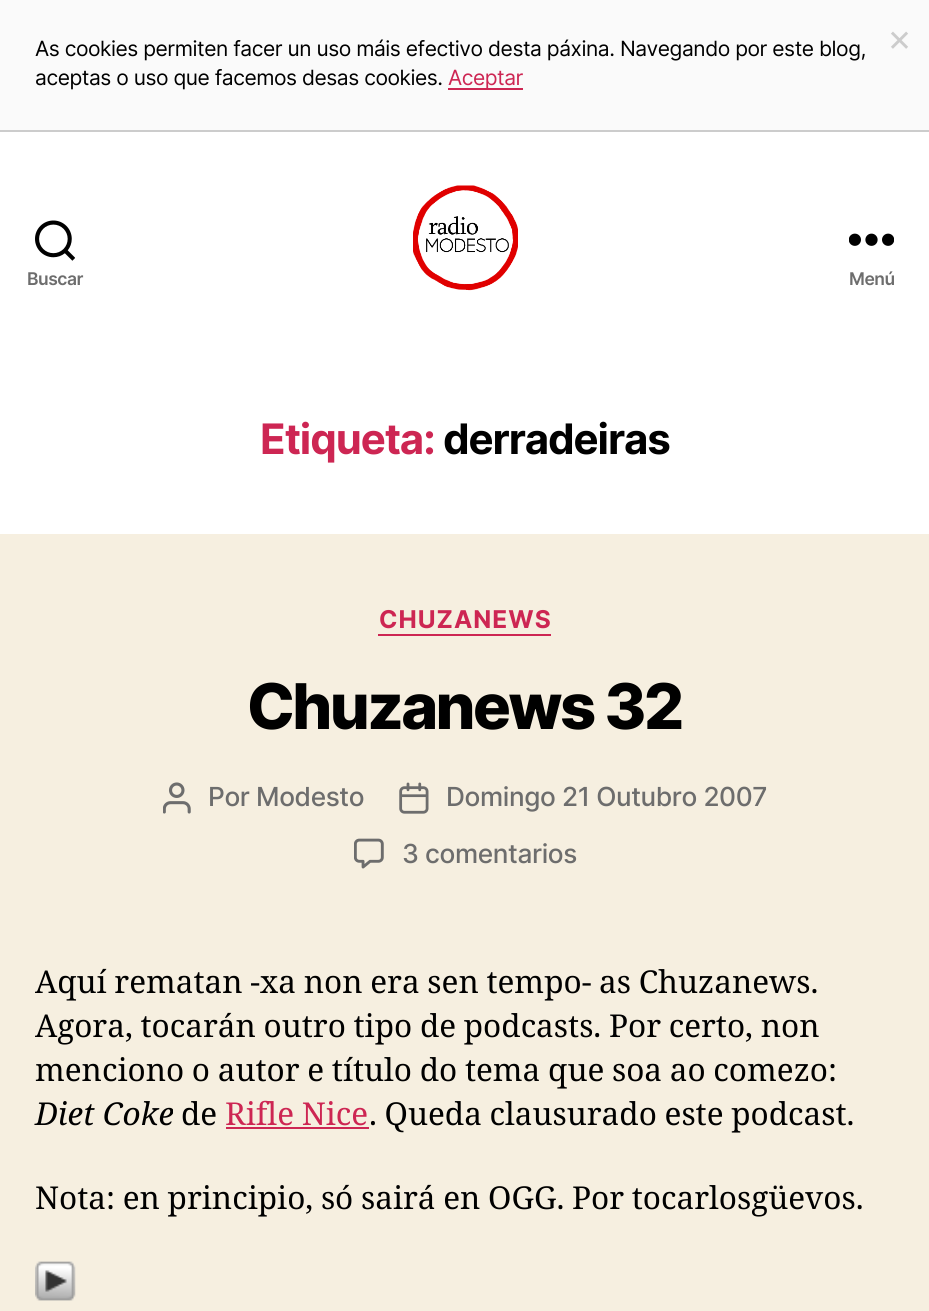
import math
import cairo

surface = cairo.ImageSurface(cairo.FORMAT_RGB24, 929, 1311)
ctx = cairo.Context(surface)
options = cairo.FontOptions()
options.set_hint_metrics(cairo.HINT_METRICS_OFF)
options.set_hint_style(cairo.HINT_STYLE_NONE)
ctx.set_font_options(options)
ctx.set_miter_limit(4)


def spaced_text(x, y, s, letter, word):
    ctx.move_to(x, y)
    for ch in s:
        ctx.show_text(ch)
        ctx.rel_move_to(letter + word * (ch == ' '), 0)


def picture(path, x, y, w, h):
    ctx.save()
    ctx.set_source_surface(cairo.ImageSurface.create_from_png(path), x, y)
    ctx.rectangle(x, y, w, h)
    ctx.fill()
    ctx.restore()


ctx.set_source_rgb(0.961, 0.937, 0.878)
ctx.paint()
ctx.set_source_rgb(0.98, 0.98, 0.98)
ctx.rectangle(0, 0, 929, 130)
ctx.fill()
ctx.set_source_rgb(0.8, 0.8, 0.8)
ctx.rectangle(0, 130, 929, 2)
ctx.fill()
ctx.select_font_face("Inter")
ctx.set_font_size(21)
ctx.set_source_rgb(0, 0, 0)
spaced_text(35, 56, "As cookies permiten facer un uso máis efectivo desta páxina. Navegando por este blog,", -0.47, 0)
ctx.set_font_size(38)
ctx.set_source_rgb(0.8, 0.8, 0.8)
spaced_text(887, 51, "×", -0.47, 0)
ctx.set_font_size(21)
ctx.set_source_rgb(0, 0, 0)
spaced_text(35, 85, "aceptas o uso que facemos desas cookies.", -0.47, 0)
ctx.set_source_rgb(0.804, 0.149, 0.325)
ctx.rectangle(448, 88, 75, 2)
ctx.fill()
spaced_text(448, 85, "Aceptar", -0.47, 0)
ctx.set_source_rgb(1, 1, 1)
ctx.rectangle(0, 132, 929, 402)
ctx.fill()
picture("img1.png", 35, 220, 40, 41)
ctx.select_font_face("Inter SemiBold")
ctx.set_font_size(17.5)
ctx.set_source_rgb(0.427, 0.427, 0.427)
spaced_text(27, 285, "Buscar", -0.47, 0)
picture("img2.png", 413, 185, 105, 106)
picture("img3.png", 849, 233, 45, 13)
spaced_text(849, 285, "Menú", -0.47, 0)
ctx.select_font_face("Inter", cairo.FONT_SLANT_NORMAL, cairo.FONT_WEIGHT_BOLD)
ctx.set_font_size(42)
ctx.set_source_rgb(0.804, 0.149, 0.325)
spaced_text(260, 454, "Etiqueta:", -1.1, 0)
ctx.set_source_rgb(0, 0, 0)
spaced_text(443, 454, "derradeiras", -1.1, 0)
ctx.set_source_rgb(0.804, 0.149, 0.325)
ctx.rectangle(378, 634, 173, 2)
ctx.fill()
ctx.set_font_size(24.5)
spaced_text(379, 628, "CHUZANEWS", 1, 0)
ctx.select_font_face("Inter ExtraBold")
ctx.set_font_size(63)
ctx.set_source_rgb(0, 0, 0)
spaced_text(247, 729, "Chuzanews 32", -2.6, 0)
picture("img4.png", 163, 782, 28, 32)
ctx.select_font_face("Inter Medium")
ctx.set_font_size(26.25)
ctx.set_source_rgb(0.427, 0.427, 0.427)
spaced_text(208, 806, "Por Modesto", -0.4, 0)
picture("img5.png", 399, 782, 30, 32)
spaced_text(446, 806, "Domingo 21 Outubro 2007", -0.4, 0)
picture("img6.png", 354, 838, 30, 31)
spaced_text(402, 863, "3 comentarios", -0.4, 0)
ctx.select_font_face("Noto Serif")
ctx.set_font_size(31.5)
ctx.set_source_rgb(0, 0, 0)
spaced_text(35, 993, "Aquí rematan -xa non era sen tempo- as Chuzanews.", 0, -0.5)
spaced_text(35, 1037, "Agora, tocarán outro tipo de podcasts. Por certo, non", 0, -0.5)
spaced_text(35, 1081, "menciono o autor e título do tema que soa ao comezo:", 0, -0.5)
ctx.select_font_face("Noto Serif", cairo.FONT_SLANT_ITALIC)
ctx.move_to(35, 1125)
ctx.show_text("Diet Coke")
ctx.select_font_face("Noto Serif")
ctx.move_to(181, 1125)
ctx.show_text("de")
ctx.set_source_rgb(0.804, 0.149, 0.325)
spaced_text(225, 1125, "Rifle Nice", 0, -0.5)
ctx.rectangle(226, 1127, 143, 2)
ctx.fill()
ctx.set_source_rgb(0, 0, 0)
spaced_text(369, 1125, ". Queda clausurado este podcast.", 0, -0.5)
spaced_text(35, 1209, "Nota: en principio, só sairá en OGG. Por tocarlosgüevos.", 0, -0.5)
picture("img7.png", 35, 1261, 41, 40)
surface.write_to_png("page.png")
